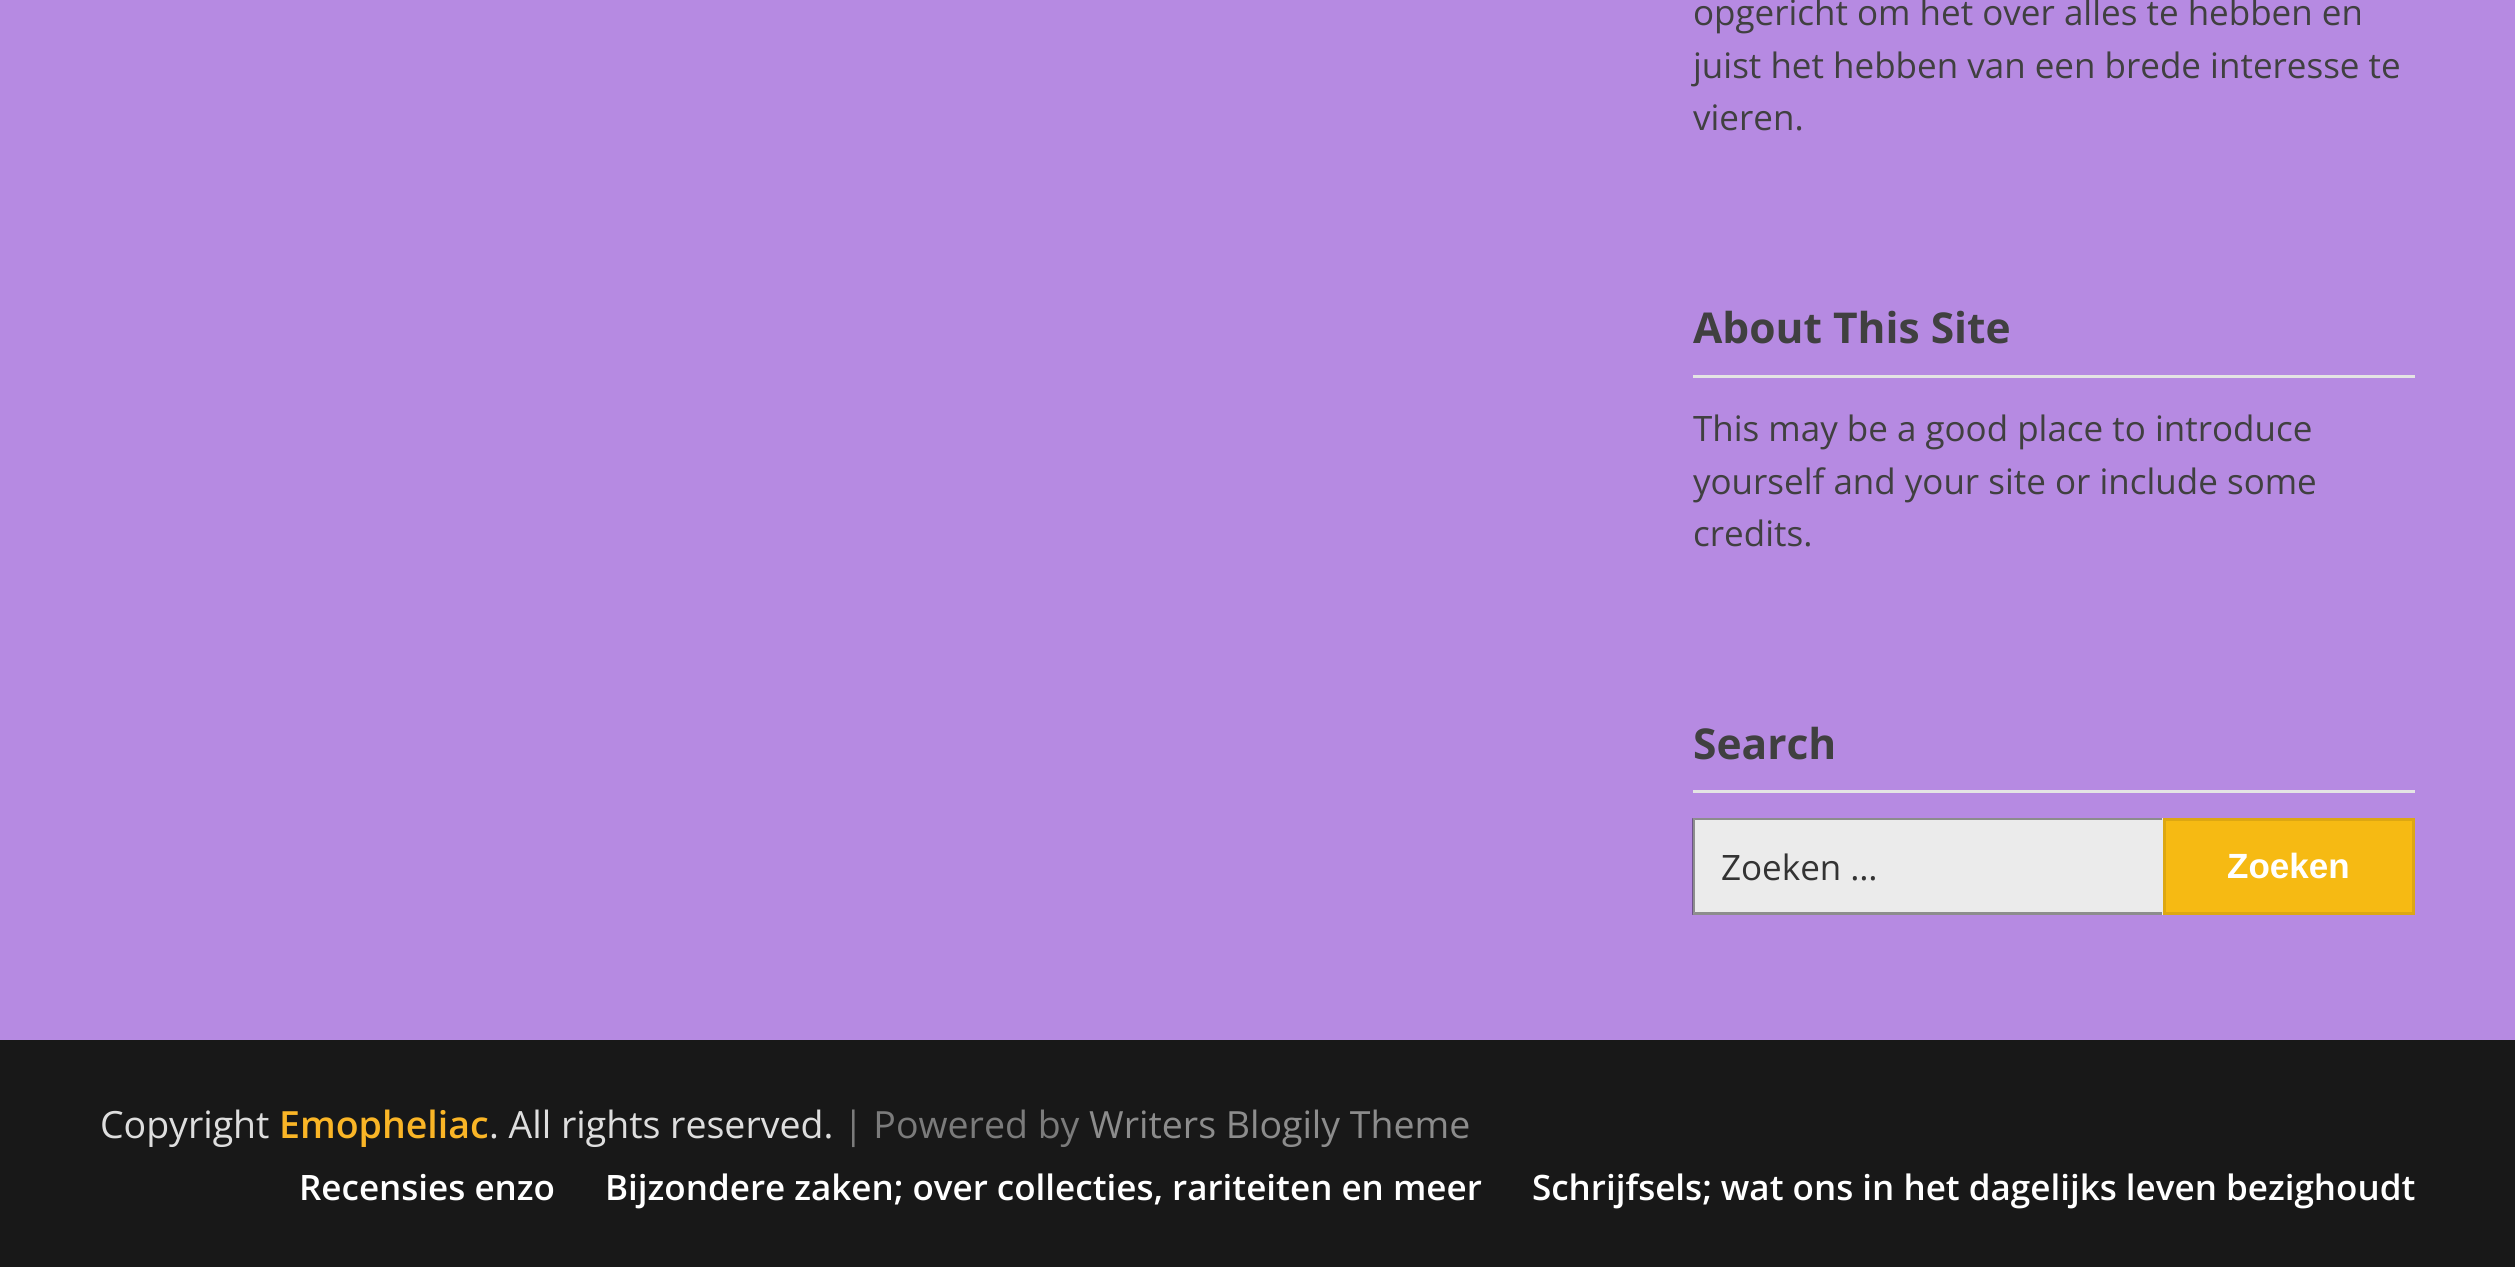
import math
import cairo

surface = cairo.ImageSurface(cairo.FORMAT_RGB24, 2515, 1267)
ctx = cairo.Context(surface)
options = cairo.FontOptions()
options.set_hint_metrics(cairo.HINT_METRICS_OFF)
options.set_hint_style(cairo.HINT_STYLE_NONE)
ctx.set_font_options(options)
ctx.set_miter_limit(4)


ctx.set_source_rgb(0.714, 0.541, 0.886)
ctx.paint()
ctx.select_font_face("Open Sans")
ctx.set_font_size(35)
ctx.set_source_rgb(0.251, 0.251, 0.251)
ctx.move_to(1693, 25)
ctx.show_text("opgericht om het over alles te hebben en")
ctx.move_to(1693, 78)
ctx.show_text("juist het hebben van een brede interesse te")
ctx.move_to(1693, 130)
ctx.show_text("vieren.")
ctx.set_source_rgb(0.894, 0.894, 0.894)
ctx.rectangle(1693, 375, 722, 3)
ctx.fill()
ctx.select_font_face("Open Sans", cairo.FONT_SLANT_NORMAL, cairo.FONT_WEIGHT_BOLD)
ctx.set_font_size(42.5)
ctx.set_source_rgb(0.251, 0.251, 0.251)
ctx.move_to(1693, 343)
ctx.show_text("About This Site")
ctx.select_font_face("Open Sans")
ctx.set_font_size(35)
ctx.move_to(1693, 441)
ctx.show_text("This may be a good place to introduce")
ctx.move_to(1693, 494)
ctx.show_text("yourself and your site or include some")
ctx.move_to(1693, 546)
ctx.show_text("credits.")
ctx.set_source_rgb(0.894, 0.894, 0.894)
ctx.rectangle(1693, 790, 722, 3)
ctx.fill()
ctx.select_font_face("Open Sans", cairo.FONT_SLANT_NORMAL, cairo.FONT_WEIGHT_BOLD)
ctx.set_font_size(42.5)
ctx.set_source_rgb(0.251, 0.251, 0.251)
ctx.move_to(1693, 759)
ctx.show_text("Search")
ctx.set_source_rgb(0.918, 0.918, 0.918)
ctx.rectangle(1693, 818, 470, 97)
ctx.fill()
ctx.set_source_rgb(0.549, 0.549, 0.549)
ctx.new_path()
ctx.move_to(1692, 818)
ctx.line_to(2162, 818)
ctx.line_to(2162, 820)
ctx.line_to(1695, 820)
ctx.close_path()
ctx.fill()
ctx.set_source_rgba(0, 0, 0, 0.4)
ctx.new_path()
ctx.move_to(2162, 915)
ctx.line_to(1692, 915)
ctx.line_to(1695, 912)
ctx.line_to(2162, 912)
ctx.close_path()
ctx.fill()
ctx.new_path()
ctx.move_to(1692, 915)
ctx.line_to(1692, 818)
ctx.line_to(1695, 820)
ctx.line_to(1695, 912)
ctx.close_path()
ctx.fill()
ctx.select_font_face("Open Sans")
ctx.set_font_size(35)
ctx.set_source_rgb(0.2, 0.2, 0.2)
ctx.move_to(1721, 880)
ctx.show_text("Zoeken …")
ctx.set_source_rgb(0.961, 0.729, 0.078)
ctx.rectangle(2164.5, 819.5, 249, 94)
ctx.fill_preserve()
ctx.set_source_rgb(0.867, 0.655, 0.071)
ctx.set_line_width(3)
ctx.stroke()
ctx.select_font_face("Liberation Sans", cairo.FONT_SLANT_NORMAL, cairo.FONT_WEIGHT_BOLD)
ctx.set_source_rgb(1, 1, 1)
ctx.move_to(2227, 878)
ctx.show_text("Zoeken")
ctx.set_source_rgb(0.094, 0.094, 0.094)
ctx.rectangle(0, 1040, 2515, 227)
ctx.fill()
ctx.select_font_face("Open Sans")
ctx.set_font_size(37.5)
ctx.set_source_rgb(0.871, 0.871, 0.871)
ctx.move_to(100, 1138)
ctx.show_text("Copyright")
ctx.select_font_face("Open Sans SemiBold")
ctx.set_source_rgb(0.98, 0.71, 0.149)
ctx.move_to(279, 1138)
ctx.show_text("Emopheliac")
ctx.select_font_face("Open Sans")
ctx.set_source_rgb(0.871, 0.871, 0.871)
ctx.move_to(489, 1138)
ctx.show_text(". All rights reserved.")
ctx.set_source_rgb(0.482, 0.482, 0.482)
ctx.move_to(843, 1138)
ctx.show_text("| Powered by")
ctx.set_source_rgb(0.549, 0.549, 0.549)
ctx.move_to(1089, 1138)
ctx.show_text("Writers Blogily Theme")
ctx.select_font_face("Open Sans SemiBold")
ctx.set_font_size(35)
ctx.set_source_rgb(1, 1, 1)
ctx.move_to(299, 1200)
ctx.show_text("Recensies enzo")
ctx.move_to(605, 1200)
ctx.show_text("Bijzondere zaken; over collecties, rariteiten en meer")
ctx.move_to(1532, 1200)
ctx.show_text("Schrijfsels; wat ons in het dagelijks leven bezighoudt")
surface.write_to_png("page.png")
